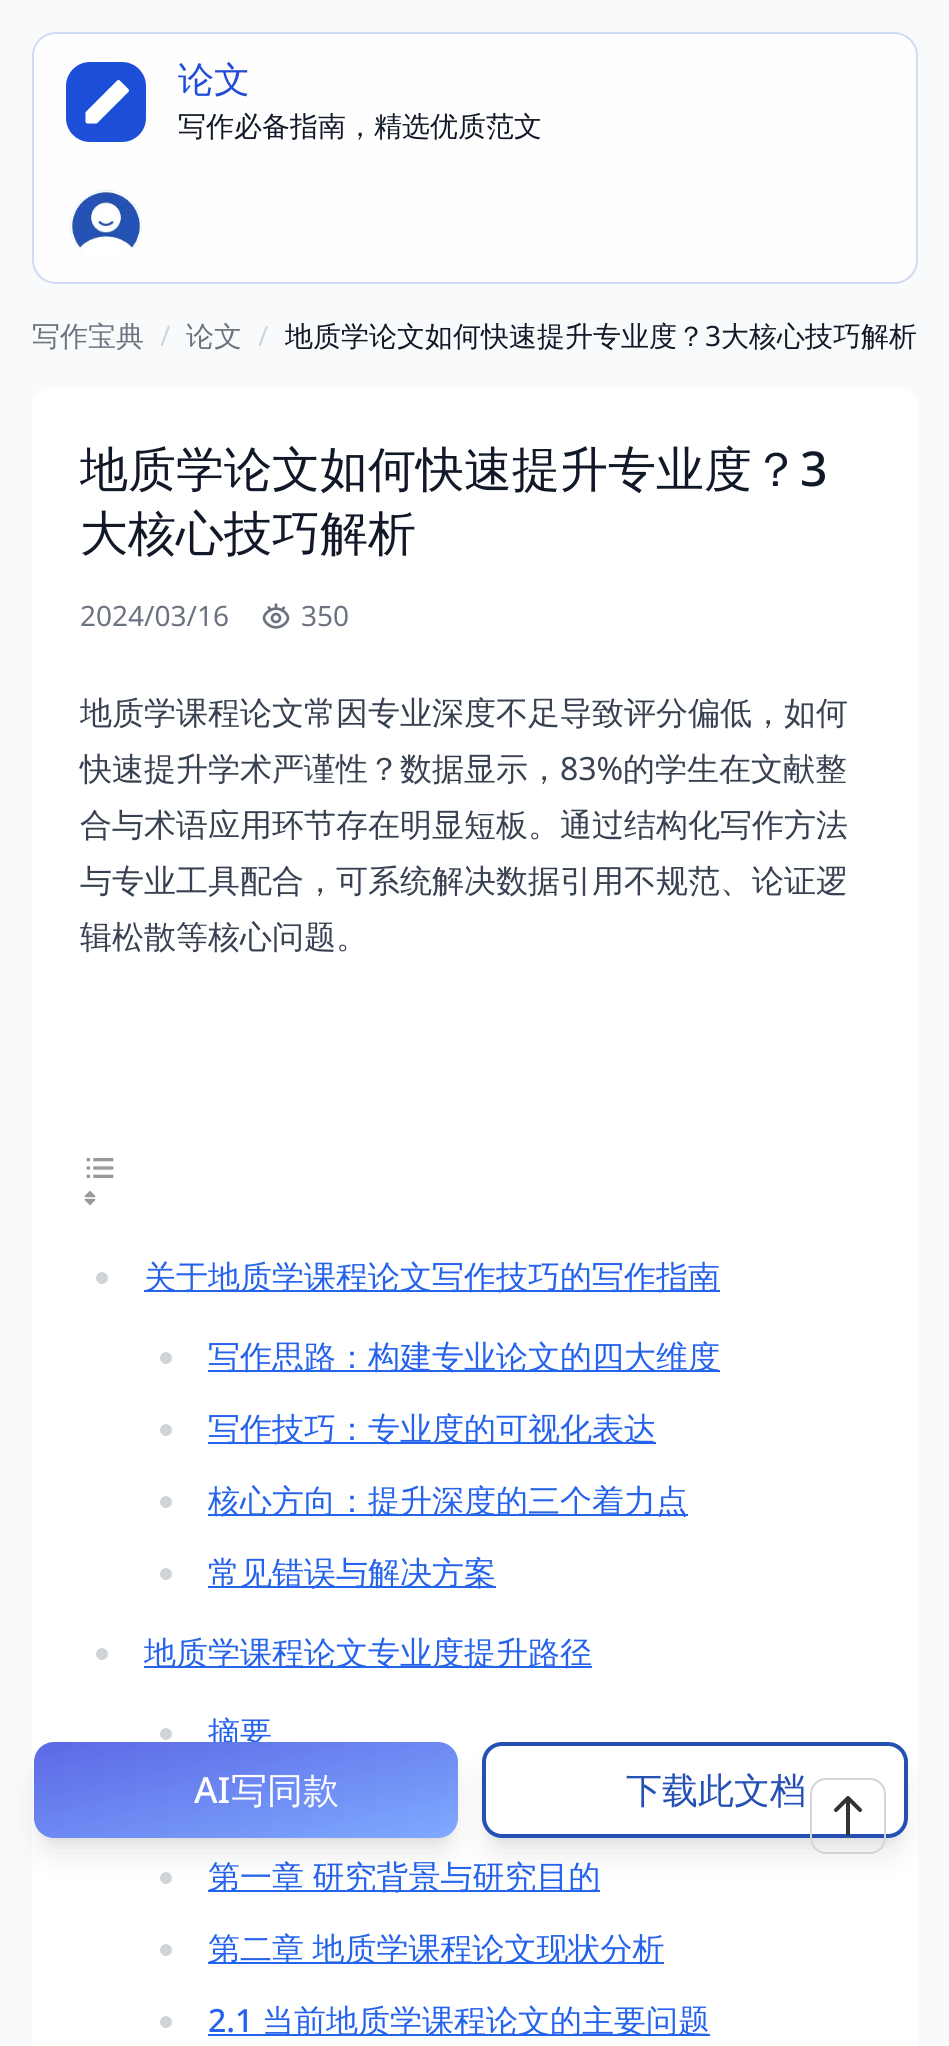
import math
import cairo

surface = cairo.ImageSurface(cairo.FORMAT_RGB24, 949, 2046)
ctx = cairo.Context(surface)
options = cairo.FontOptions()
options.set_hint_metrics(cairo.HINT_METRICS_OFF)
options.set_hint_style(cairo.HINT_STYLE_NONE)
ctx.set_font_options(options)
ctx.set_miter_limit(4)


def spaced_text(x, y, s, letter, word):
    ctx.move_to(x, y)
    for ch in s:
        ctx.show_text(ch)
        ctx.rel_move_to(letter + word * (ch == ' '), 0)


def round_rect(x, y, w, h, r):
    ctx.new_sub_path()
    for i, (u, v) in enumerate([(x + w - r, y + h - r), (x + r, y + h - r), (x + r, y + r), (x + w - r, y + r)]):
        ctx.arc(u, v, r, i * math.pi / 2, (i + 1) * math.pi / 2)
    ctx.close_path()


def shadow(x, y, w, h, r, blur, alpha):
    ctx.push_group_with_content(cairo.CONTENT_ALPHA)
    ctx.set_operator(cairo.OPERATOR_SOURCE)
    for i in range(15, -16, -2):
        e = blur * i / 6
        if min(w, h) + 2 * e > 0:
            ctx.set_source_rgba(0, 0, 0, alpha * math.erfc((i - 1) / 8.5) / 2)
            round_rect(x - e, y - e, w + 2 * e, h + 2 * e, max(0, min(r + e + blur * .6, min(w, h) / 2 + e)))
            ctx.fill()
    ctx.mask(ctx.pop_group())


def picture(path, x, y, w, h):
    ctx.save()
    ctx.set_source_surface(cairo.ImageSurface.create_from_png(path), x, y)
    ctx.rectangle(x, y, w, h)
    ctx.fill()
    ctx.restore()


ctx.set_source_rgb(0.976, 0.98, 0.984)
ctx.paint()
ctx.set_source_rgb(0.996, 0.996, 0.996)
round_rect(32, 32, 886, 252, 24)
ctx.fill()
round_rect(33, 33, 884, 250, 23)
ctx.set_source_rgba(0.114, 0.306, 0.847, 0.2)
ctx.stroke()
ctx.set_source_rgb(0.114, 0.306, 0.847)
round_rect(66, 62, 80, 80, 24)
ctx.fill()
ctx.set_source_rgb(1, 1, 1)
ctx.new_path()
ctx.move_to(87.5, 121.5)
ctx.line_to(96, 121.5)
ctx.line_to(127, 90.5)
ctx.line_to(118.5, 82)
ctx.line_to(87.5, 113)
ctx.close_path()
ctx.fill_preserve()
ctx.set_line_width(4)
ctx.set_line_join(cairo.LINE_JOIN_ROUND)
ctx.stroke()
ctx.new_path()
ctx.move_to(110, 90.5)
ctx.line_to(118.5, 99)
ctx.set_line_cap(cairo.LINE_CAP_ROUND)
ctx.stroke()
ctx.select_font_face("WenQuanYi Zen Hei Medium")
ctx.set_font_size(36)
gradient = cairo.LinearGradient(178, 78, 738, 78)
gradient.add_color_stop_rgba(0, 0.114, 0.306, 0.847, 1)
gradient.add_color_stop_rgba(1, 0.263, 0.22, 0.792, 1)
ctx.set_source(gradient)
ctx.move_to(178, 92)
ctx.show_text("论文")
ctx.set_font_size(28)
ctx.set_source_rgb(0.067, 0.094, 0.153)
ctx.move_to(178, 136)
ctx.show_text("写作必备指南，精选优质范文")
picture("img1.png", 70, 190, 72, 72)
ctx.set_source_rgb(0.42, 0.447, 0.502)
ctx.move_to(32, 346)
ctx.show_text("写作宝典")
ctx.select_font_face("Noto Sans")
ctx.set_source_rgb(0.82, 0.835, 0.859)
ctx.move_to(160, 346)
ctx.show_text("/")
ctx.select_font_face("WenQuanYi Zen Hei Medium")
ctx.set_source_rgb(0.42, 0.447, 0.502)
ctx.move_to(186, 346)
ctx.show_text("论文")
ctx.select_font_face("Noto Sans")
ctx.set_source_rgb(0.82, 0.835, 0.859)
ctx.move_to(258, 346)
ctx.show_text("/")
ctx.select_font_face("WenQuanYi Zen Hei Medium")
ctx.set_source_rgb(0.067, 0.094, 0.153)
ctx.move_to(285, 346)
ctx.show_text("地质学论文如何快速提升专业度？")
ctx.select_font_face("Noto Sans")
ctx.move_to(705, 346)
ctx.show_text("3")
ctx.select_font_face("WenQuanYi Zen Hei Medium")
ctx.move_to(721, 346)
ctx.show_text("大核心技巧解析")
ctx.set_source_rgb(1, 1, 1)
ctx.new_path()
ctx.move_to(48, 388)
ctx.line_to(902, 388)
ctx.curve_to(911, 388, 918, 395, 918, 404)
ctx.line_to(918, 2046)
ctx.line_to(32, 2046)
ctx.line_to(32, 404)
ctx.curve_to(32, 395, 39, 388, 48, 388)
ctx.close_path()
ctx.fill()
ctx.set_font_size(48)
ctx.set_source_rgb(0.067, 0.094, 0.153)
ctx.move_to(80, 486)
ctx.show_text("地质学论文如何快速提升专业度？")
ctx.select_font_face("Noto Sans Medium")
ctx.move_to(800, 486)
ctx.show_text("3")
ctx.select_font_face("WenQuanYi Zen Hei Medium")
ctx.move_to(80, 550)
ctx.show_text("大核心技巧解析")
ctx.select_font_face("Noto Sans")
ctx.set_font_size(28)
ctx.set_source_rgb(0.42, 0.447, 0.502)
ctx.move_to(80, 626)
ctx.show_text("2024/03/16")
picture("img2.png", 262, 603, 28, 26)
ctx.move_to(301, 626)
ctx.show_text("350")
ctx.select_font_face("WenQuanYi Zen Hei Medium")
ctx.set_font_size(32)
ctx.set_source_rgb(0.216, 0.255, 0.318)
ctx.move_to(80, 724)
ctx.show_text("地质学课程论文常因专业深度不足导致评分偏低，如何")
ctx.move_to(80, 780)
ctx.show_text("快速提升学术严谨性？数据显示，")
ctx.select_font_face("Noto Sans")
ctx.move_to(560, 780)
ctx.show_text("83%")
ctx.select_font_face("WenQuanYi Zen Hei Medium")
ctx.move_to(623, 780)
ctx.show_text("的学生在文献整")
ctx.move_to(80, 836)
ctx.show_text("合与术语应用环节存在明显短板。通过结构化写作方法")
ctx.move_to(80, 892)
ctx.show_text("与专业工具配合，可系统解决数据引用不规范、论证逻")
ctx.move_to(80, 948)
ctx.show_text("辑松散等核心问题。")
picture("img3.png", 86, 1158, 28, 20)
picture("img4.png", 84, 1190, 12, 16)
ctx.set_source_rgb(0.82, 0.835, 0.859)
ctx.arc(102, 1278, 6, 0, 2 * math.pi)
ctx.fill()
ctx.set_source_rgb(0.145, 0.388, 0.922)
ctx.rectangle(144, 1290, 576, 2)
ctx.fill()
ctx.move_to(144, 1288)
ctx.show_text("关于地质学课程论文写作技巧的写作指南")
ctx.set_source_rgb(0.82, 0.835, 0.859)
ctx.new_path()
ctx.arc(166, 1358, 6, 0, 2 * math.pi)
ctx.fill()
ctx.set_source_rgb(0.145, 0.388, 0.922)
ctx.rectangle(208, 1370, 512, 2)
ctx.fill()
ctx.move_to(208, 1368)
ctx.show_text("写作思路：构建专业论文的四大维度")
ctx.set_source_rgb(0.82, 0.835, 0.859)
ctx.new_path()
ctx.arc(166, 1430, 6, 0, 2 * math.pi)
ctx.fill()
ctx.set_source_rgb(0.145, 0.388, 0.922)
ctx.rectangle(208, 1442, 448, 2)
ctx.fill()
ctx.move_to(208, 1440)
ctx.show_text("写作技巧：专业度的可视化表达")
ctx.set_source_rgb(0.82, 0.835, 0.859)
ctx.new_path()
ctx.arc(166, 1502, 6, 0, 2 * math.pi)
ctx.fill()
ctx.set_source_rgb(0.145, 0.388, 0.922)
ctx.rectangle(208, 1514, 480, 2)
ctx.fill()
ctx.move_to(208, 1512)
ctx.show_text("核心方向：提升深度的三个着力点")
ctx.set_source_rgb(0.82, 0.835, 0.859)
ctx.new_path()
ctx.arc(166, 1574, 6, 0, 2 * math.pi)
ctx.fill()
ctx.set_source_rgb(0.145, 0.388, 0.922)
ctx.rectangle(208, 1586, 288, 2)
ctx.fill()
ctx.move_to(208, 1584)
ctx.show_text("常见错误与解决方案")
ctx.set_source_rgb(0.82, 0.835, 0.859)
ctx.new_path()
ctx.arc(102, 1654, 6, 0, 2 * math.pi)
ctx.fill()
ctx.set_source_rgb(0.145, 0.388, 0.922)
ctx.rectangle(144, 1666, 448, 2)
ctx.fill()
ctx.move_to(144, 1664)
ctx.show_text("地质学课程论文专业度提升路径")
ctx.set_source_rgb(0.82, 0.835, 0.859)
ctx.new_path()
ctx.arc(166, 1734, 6, 0, 2 * math.pi)
ctx.fill()
ctx.set_source_rgb(0.145, 0.388, 0.922)
ctx.move_to(208, 1744)
ctx.show_text("摘要")
ctx.set_source_rgb(0.82, 0.835, 0.859)
ctx.new_path()
ctx.arc(166, 1878, 6, 0, 2 * math.pi)
ctx.fill()
ctx.set_source_rgb(0.145, 0.388, 0.922)
ctx.rectangle(208, 1890, 392, 2)
ctx.fill()
spaced_text(208, 1888, "第一章 研究背景与研究目的", 0, -1)
ctx.set_source_rgb(0.82, 0.835, 0.859)
ctx.new_path()
ctx.arc(166, 1950, 6, 0, 2 * math.pi)
ctx.fill()
ctx.set_source_rgb(0.145, 0.388, 0.922)
ctx.rectangle(208, 1962, 456, 2)
ctx.fill()
spaced_text(208, 1960, "第二章 地质学课程论文现状分析", 0, -1)
ctx.set_source_rgb(0.82, 0.835, 0.859)
ctx.new_path()
ctx.arc(166, 2022, 6, 0, 2 * math.pi)
ctx.fill()
ctx.select_font_face("Noto Sans Medium")
ctx.set_source_rgb(0.145, 0.388, 0.922)
ctx.move_to(208, 2032)
ctx.show_text("2.1")
ctx.rectangle(208, 2034, 502, 2)
ctx.fill()
ctx.select_font_face("WenQuanYi Zen Hei Medium")
ctx.move_to(262, 2032)
ctx.show_text("当前地质学课程论文的主要问题")
ctx.set_source_rgb(0, 0, 0)
shadow(42, 1758, 408, 80, 12, 6, 0.1)
shadow(40, 1768, 412, 84, 14, 15, 0.1)
gradient = cairo.LinearGradient(224, 1699, 266, 1881)
gradient.add_color_stop_rgba(0, 0.357, 0.412, 0.898, 1)
gradient.add_color_stop_rgba(1, 0.498, 0.663, 1, 1)
ctx.set_source(gradient)
round_rect(34, 1742, 424, 96, 20)
ctx.fill()
ctx.select_font_face("Noto Sans Medium")
ctx.set_font_size(36)
ctx.set_source_rgb(1, 1, 1)
ctx.move_to(194, 1803)
ctx.show_text("AI")
ctx.select_font_face("WenQuanYi Zen Hei Medium")
ctx.move_to(231, 1803)
ctx.show_text("写同款")
ctx.set_source_rgb(0, 0, 0)
shadow(490, 1758, 410, 80, 12, 6, 0.1)
shadow(488, 1768, 414, 84, 14, 15, 0.1)
ctx.set_source_rgb(1, 1, 1)
round_rect(484, 1744, 422, 92, 18)
ctx.fill_preserve()
ctx.set_source_rgb(0.145, 0.318, 0.71)
ctx.set_line_cap(cairo.LINE_CAP_BUTT)
ctx.set_line_join(cairo.LINE_JOIN_MITER)
ctx.stroke()
ctx.move_to(626, 1803)
ctx.show_text("下载此文档")
round_rect(811, 1779, 74, 74, 15)
ctx.set_source_rgb(0.82, 0.835, 0.859)
ctx.set_line_width(2)
ctx.stroke()
ctx.new_path()
ctx.move_to(848, 1798)
ctx.line_to(848, 1834)
ctx.move_to(836, 1810)
ctx.line_to(848, 1798)
ctx.line_to(860, 1810)
ctx.set_source_rgb(0.2, 0.2, 0.2)
ctx.set_line_width(4)
ctx.set_line_cap(cairo.LINE_CAP_ROUND)
ctx.set_line_join(cairo.LINE_JOIN_ROUND)
ctx.stroke()
surface.write_to_png("page.png")
